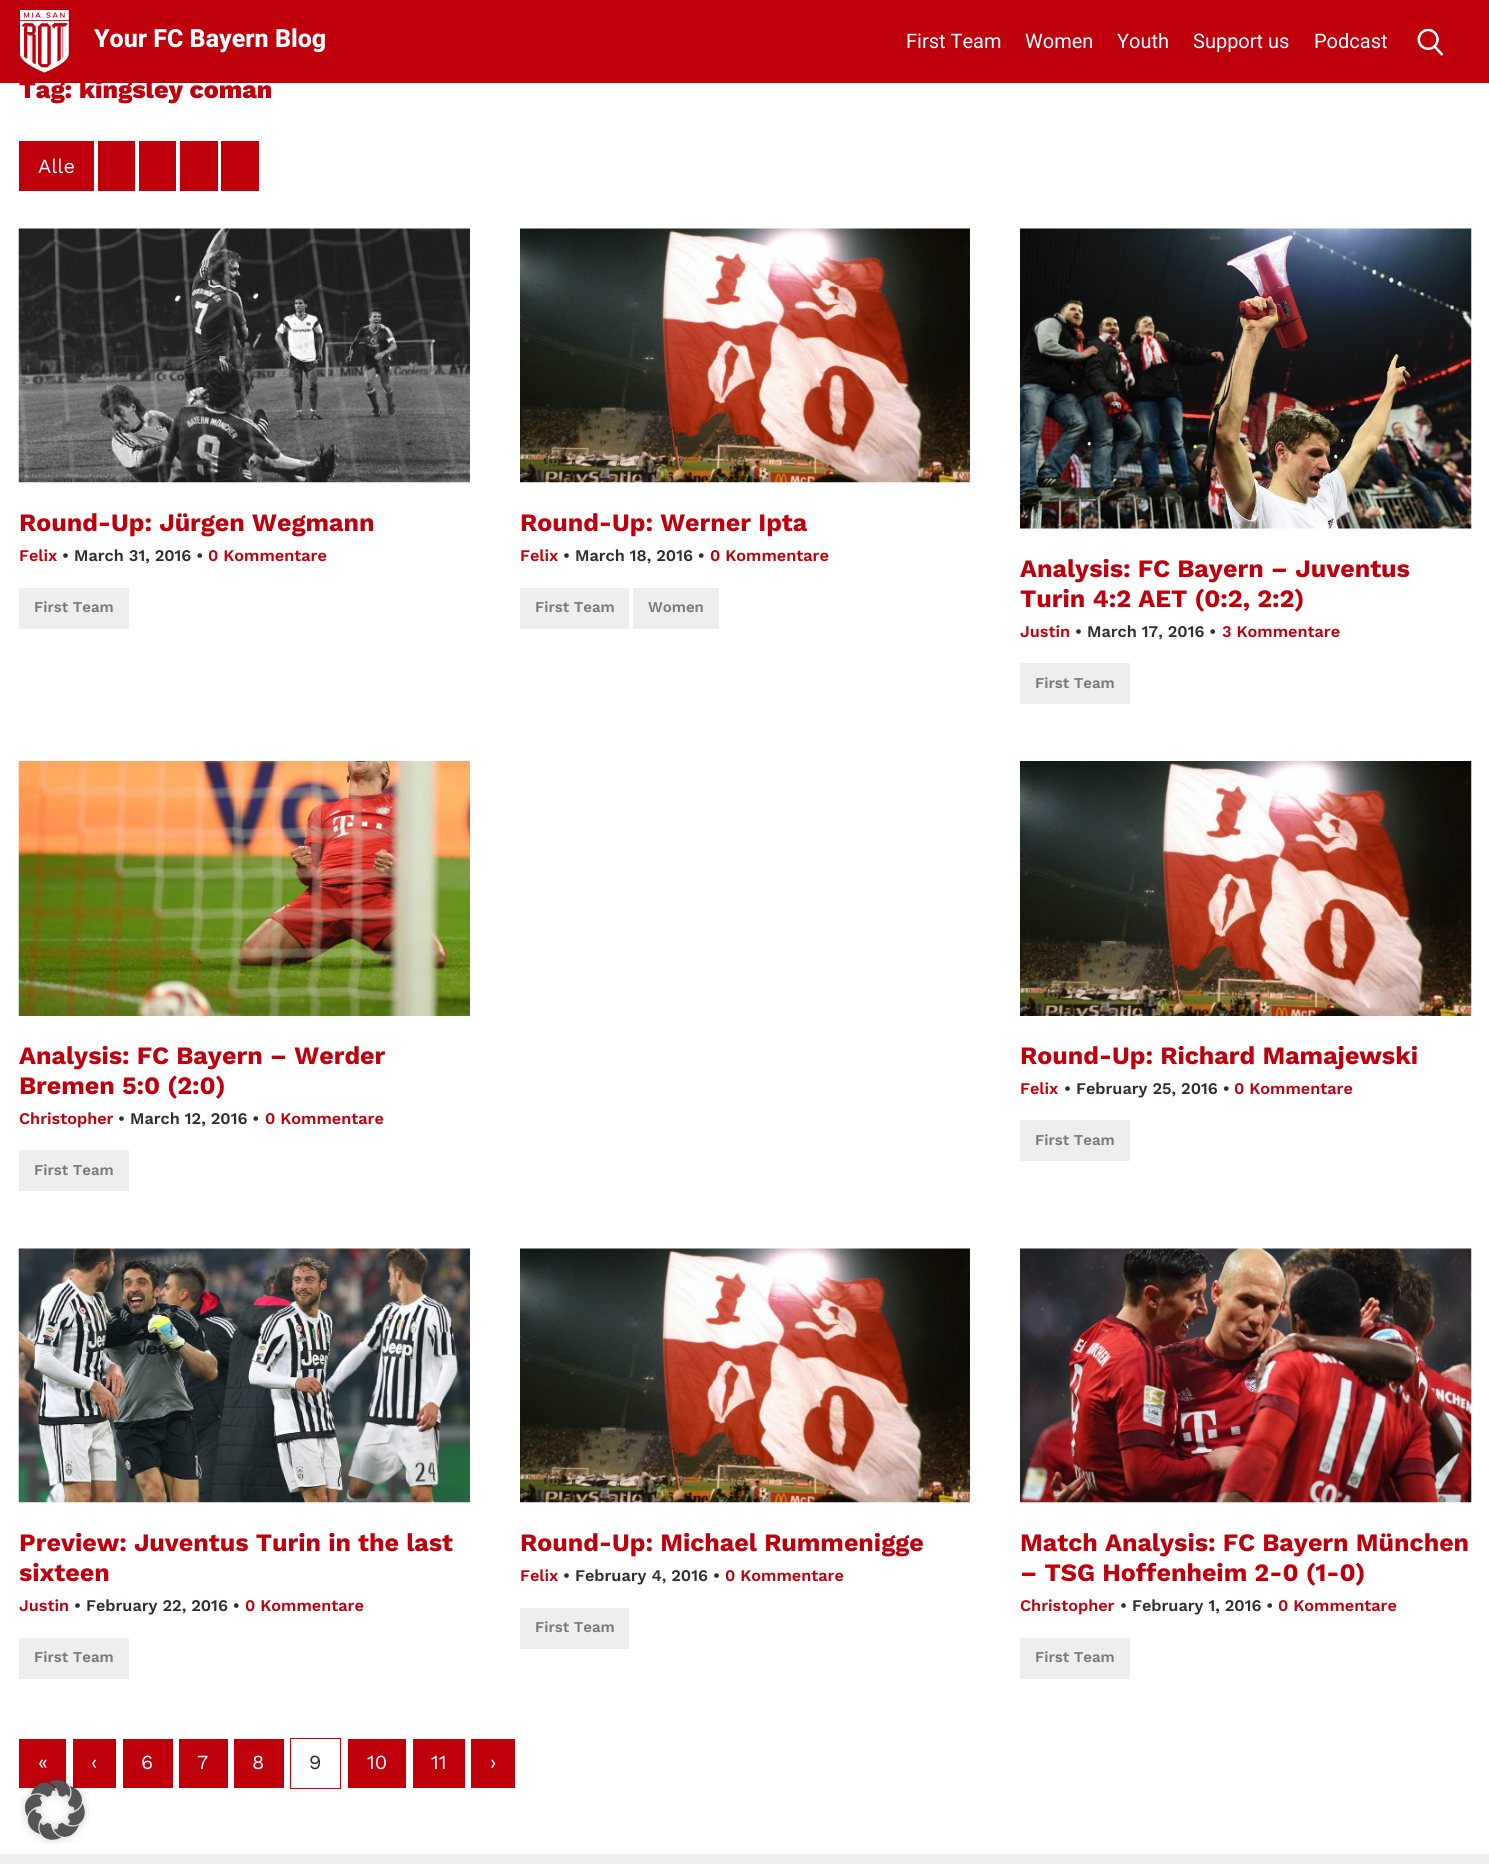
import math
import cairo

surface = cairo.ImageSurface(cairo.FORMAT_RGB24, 1489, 1864)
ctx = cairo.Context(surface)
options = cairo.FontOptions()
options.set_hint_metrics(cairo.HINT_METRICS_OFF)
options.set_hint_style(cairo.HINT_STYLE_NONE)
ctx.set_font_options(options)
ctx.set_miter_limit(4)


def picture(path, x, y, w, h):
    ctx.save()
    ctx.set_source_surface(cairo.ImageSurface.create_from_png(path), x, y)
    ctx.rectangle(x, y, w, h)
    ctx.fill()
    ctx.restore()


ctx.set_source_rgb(1, 1, 1)
ctx.paint()
ctx.set_source_rgb(0.749, 0, 0.047)
ctx.rectangle(0, 0, 1489, 83)
ctx.fill()
picture("img1.png", 20, 10, 49, 63)
ctx.select_font_face("Roboto ExtraBold")
ctx.set_font_size(25)
ctx.set_source_rgb(1, 1, 1)
ctx.move_to(94, 47)
ctx.show_text("Your FC Bayern Blog")
ctx.select_font_face("Roboto")
ctx.set_font_size(20)
ctx.move_to(906, 48)
ctx.show_text("First Team")
ctx.move_to(1025, 48)
ctx.show_text("Women")
ctx.move_to(1117, 48)
ctx.show_text("Youth")
ctx.move_to(1193, 48)
ctx.show_text("Support us")
ctx.move_to(1314, 48)
ctx.show_text("Podcast")
picture("img2.png", 1417, 28, 27, 28)
ctx.select_font_face("Work Sans ExtraBold")
ctx.set_font_size(25)
ctx.set_source_rgb(0.749, 0, 0.047)
ctx.move_to(19, 98)
ctx.show_text("Tag: kingsley coman")
ctx.rectangle(19, 141, 75, 50)
ctx.fill()
ctx.select_font_face("Work Sans")
ctx.set_font_size(20)
ctx.set_source_rgb(1, 1, 1)
ctx.move_to(38, 173)
ctx.show_text("Alle")
ctx.set_source_rgb(0.749, 0, 0.047)
ctx.rectangle(98, 141, 37, 50)
ctx.fill()
ctx.rectangle(139, 141, 37, 50)
ctx.fill()
ctx.rectangle(180, 141, 38, 50)
ctx.fill()
ctx.rectangle(221, 141, 38, 50)
ctx.fill()
picture("img3.png", 18, 228, 452, 255)
ctx.select_font_face("Work Sans", cairo.FONT_SLANT_NORMAL, cairo.FONT_WEIGHT_BOLD)
ctx.set_font_size(25)
ctx.move_to(19, 531)
ctx.show_text("Round-Up: Jürgen Wegmann")
ctx.select_font_face("Work Sans SemiBold")
ctx.set_font_size(16.25)
ctx.move_to(19, 561)
ctx.show_text("Felix")
ctx.set_source_rgb(0.188, 0.176, 0.176)
ctx.move_to(62, 561)
ctx.show_text("• March 31, 2016 •")
ctx.set_source_rgb(0.749, 0, 0.047)
ctx.move_to(208, 561)
ctx.show_text("0 Kommentare")
ctx.set_source_rgb(0.937, 0.933, 0.933)
ctx.rectangle(19, 588, 110, 41)
ctx.fill()
ctx.set_font_size(15)
ctx.set_source_rgb(0.475, 0.475, 0.475)
ctx.move_to(34, 612)
ctx.show_text("First Team")
picture("img4.png", 520, 228, 450, 255)
ctx.select_font_face("Work Sans", cairo.FONT_SLANT_NORMAL, cairo.FONT_WEIGHT_BOLD)
ctx.set_font_size(25)
ctx.set_source_rgb(0.749, 0, 0.047)
ctx.move_to(520, 531)
ctx.show_text("Round-Up: Werner Ipta")
ctx.select_font_face("Work Sans SemiBold")
ctx.set_font_size(16.25)
ctx.move_to(520, 561)
ctx.show_text("Felix")
ctx.set_source_rgb(0.188, 0.176, 0.176)
ctx.move_to(563, 561)
ctx.show_text("• March 18, 2016 •")
ctx.set_source_rgb(0.749, 0, 0.047)
ctx.move_to(710, 561)
ctx.show_text("0 Kommentare")
ctx.set_source_rgb(0.937, 0.933, 0.933)
ctx.rectangle(520, 588, 109, 41)
ctx.fill()
ctx.set_font_size(15)
ctx.set_source_rgb(0.475, 0.475, 0.475)
ctx.move_to(535, 612)
ctx.show_text("First Team")
ctx.set_source_rgb(0.937, 0.933, 0.933)
ctx.rectangle(633, 588, 86, 41)
ctx.fill()
ctx.set_source_rgb(0.475, 0.475, 0.475)
ctx.move_to(648, 612)
ctx.show_text("Women")
picture("img5.png", 1020, 228, 452, 301)
ctx.select_font_face("Work Sans", cairo.FONT_SLANT_NORMAL, cairo.FONT_WEIGHT_BOLD)
ctx.set_font_size(25)
ctx.set_source_rgb(0.749, 0, 0.047)
ctx.move_to(1020, 577)
ctx.show_text("Analysis: FC Bayern – Juventus")
ctx.move_to(1020, 607)
ctx.show_text("Turin 4:2 AET (0:2, 2:2)")
ctx.select_font_face("Work Sans SemiBold")
ctx.set_font_size(16.25)
ctx.move_to(1020, 637)
ctx.show_text("Justin")
ctx.set_source_rgb(0.188, 0.176, 0.176)
ctx.move_to(1075, 637)
ctx.show_text("• March 17, 2016 •")
ctx.set_source_rgb(0.749, 0, 0.047)
ctx.move_to(1222, 637)
ctx.show_text("3 Kommentare")
ctx.set_source_rgb(0.937, 0.933, 0.933)
ctx.rectangle(1020, 663, 110, 41)
ctx.fill()
ctx.set_font_size(15)
ctx.set_source_rgb(0.475, 0.475, 0.475)
ctx.move_to(1035, 688)
ctx.show_text("First Team")
picture("img6.png", 18, 761, 452, 255)
ctx.select_font_face("Work Sans", cairo.FONT_SLANT_NORMAL, cairo.FONT_WEIGHT_BOLD)
ctx.set_font_size(25)
ctx.set_source_rgb(0.749, 0, 0.047)
ctx.move_to(19, 1064)
ctx.show_text("Analysis: FC Bayern – Werder")
ctx.move_to(19, 1094)
ctx.show_text("Bremen 5:0 (2:0)")
ctx.select_font_face("Work Sans SemiBold")
ctx.set_font_size(16.25)
ctx.move_to(19, 1124)
ctx.show_text("Christopher")
ctx.set_source_rgb(0.188, 0.176, 0.176)
ctx.move_to(118, 1124)
ctx.show_text("• March 12, 2016 •")
ctx.set_source_rgb(0.749, 0, 0.047)
ctx.move_to(265, 1124)
ctx.show_text("0 Kommentare")
ctx.set_source_rgb(0.937, 0.933, 0.933)
ctx.rectangle(19, 1150, 110, 41)
ctx.fill()
ctx.set_font_size(15)
ctx.set_source_rgb(0.475, 0.475, 0.475)
ctx.move_to(34, 1175)
ctx.show_text("First Team")
picture("img7.png", 1020, 761, 452, 255)
ctx.select_font_face("Work Sans", cairo.FONT_SLANT_NORMAL, cairo.FONT_WEIGHT_BOLD)
ctx.set_font_size(25)
ctx.set_source_rgb(0.749, 0, 0.047)
ctx.move_to(1020, 1064)
ctx.show_text("Round-Up: Richard Mamajewski")
ctx.select_font_face("Work Sans SemiBold")
ctx.set_font_size(16.25)
ctx.move_to(1020, 1094)
ctx.show_text("Felix")
ctx.set_source_rgb(0.188, 0.176, 0.176)
ctx.move_to(1064, 1094)
ctx.show_text("• February 25, 2016 •")
ctx.set_source_rgb(0.749, 0, 0.047)
ctx.move_to(1234, 1094)
ctx.show_text("0 Kommentare")
ctx.set_source_rgb(0.937, 0.933, 0.933)
ctx.rectangle(1020, 1120, 110, 41)
ctx.fill()
ctx.set_font_size(15)
ctx.set_source_rgb(0.475, 0.475, 0.475)
ctx.move_to(1035, 1145)
ctx.show_text("First Team")
picture("img8.png", 18, 1248, 452, 255)
ctx.select_font_face("Work Sans", cairo.FONT_SLANT_NORMAL, cairo.FONT_WEIGHT_BOLD)
ctx.set_font_size(25)
ctx.set_source_rgb(0.749, 0, 0.047)
ctx.move_to(19, 1551)
ctx.show_text("Preview: Juventus Turin in the last")
ctx.move_to(19, 1581)
ctx.show_text("sixteen")
ctx.select_font_face("Work Sans SemiBold")
ctx.set_font_size(16.25)
ctx.move_to(19, 1611)
ctx.show_text("Justin")
ctx.set_source_rgb(0.188, 0.176, 0.176)
ctx.move_to(74, 1611)
ctx.show_text("• February 22, 2016 •")
ctx.set_source_rgb(0.749, 0, 0.047)
ctx.move_to(245, 1611)
ctx.show_text("0 Kommentare")
ctx.set_source_rgb(0.937, 0.933, 0.933)
ctx.rectangle(19, 1638, 110, 41)
ctx.fill()
ctx.set_font_size(15)
ctx.set_source_rgb(0.475, 0.475, 0.475)
ctx.move_to(34, 1662)
ctx.show_text("First Team")
picture("img4.png", 520, 1248, 450, 255)
ctx.select_font_face("Work Sans", cairo.FONT_SLANT_NORMAL, cairo.FONT_WEIGHT_BOLD)
ctx.set_font_size(25)
ctx.set_source_rgb(0.749, 0, 0.047)
ctx.move_to(520, 1551)
ctx.show_text("Round-Up: Michael Rummenigge")
ctx.select_font_face("Work Sans SemiBold")
ctx.set_font_size(16.25)
ctx.move_to(520, 1581)
ctx.show_text("Felix")
ctx.set_source_rgb(0.188, 0.176, 0.176)
ctx.move_to(563, 1581)
ctx.show_text("• February 4, 2016 •")
ctx.set_source_rgb(0.749, 0, 0.047)
ctx.move_to(725, 1581)
ctx.show_text("0 Kommentare")
ctx.set_source_rgb(0.937, 0.933, 0.933)
ctx.rectangle(520, 1608, 109, 41)
ctx.fill()
ctx.set_font_size(15)
ctx.set_source_rgb(0.475, 0.475, 0.475)
ctx.move_to(535, 1632)
ctx.show_text("First Team")
picture("img9.png", 1020, 1248, 452, 255)
ctx.select_font_face("Work Sans", cairo.FONT_SLANT_NORMAL, cairo.FONT_WEIGHT_BOLD)
ctx.set_font_size(25)
ctx.set_source_rgb(0.749, 0, 0.047)
ctx.move_to(1020, 1551)
ctx.show_text("Match Analysis: FC Bayern München")
ctx.move_to(1020, 1581)
ctx.show_text("– TSG Hoffenheim 2-0 (1-0)")
ctx.select_font_face("Work Sans SemiBold")
ctx.set_font_size(16.25)
ctx.move_to(1020, 1611)
ctx.show_text("Christopher")
ctx.set_source_rgb(0.188, 0.176, 0.176)
ctx.move_to(1120, 1611)
ctx.show_text("• February 1, 2016 •")
ctx.set_source_rgb(0.749, 0, 0.047)
ctx.move_to(1278, 1611)
ctx.show_text("0 Kommentare")
ctx.set_source_rgb(0.937, 0.933, 0.933)
ctx.rectangle(1020, 1638, 110, 41)
ctx.fill()
ctx.set_font_size(15)
ctx.set_source_rgb(0.475, 0.475, 0.475)
ctx.move_to(1035, 1662)
ctx.show_text("First Team")
ctx.set_source_rgb(0.749, 0, 0.047)
ctx.rectangle(19, 1739, 47, 49)
ctx.fill()
ctx.select_font_face("Work Sans")
ctx.set_font_size(20)
ctx.set_source_rgb(1, 1, 1)
ctx.move_to(38, 1769)
ctx.show_text("«")
ctx.set_source_rgb(0.749, 0, 0.047)
ctx.rectangle(73, 1739, 43, 49)
ctx.fill()
ctx.set_source_rgb(1, 1, 1)
ctx.move_to(91, 1769)
ctx.show_text("‹")
ctx.set_source_rgb(0.749, 0, 0.047)
ctx.rectangle(123, 1739, 50, 49)
ctx.fill()
ctx.set_source_rgb(1, 1, 1)
ctx.move_to(141, 1769)
ctx.show_text("6")
ctx.set_source_rgb(0.749, 0, 0.047)
ctx.rectangle(179, 1739, 49, 49)
ctx.fill()
ctx.set_source_rgb(1, 1, 1)
ctx.move_to(197, 1769)
ctx.show_text("7")
ctx.set_source_rgb(0.749, 0, 0.047)
ctx.rectangle(234, 1739, 50, 49)
ctx.fill()
ctx.set_source_rgb(1, 1, 1)
ctx.move_to(252, 1769)
ctx.show_text("8")
ctx.rectangle(290.5, 1738.5, 50, 50)
ctx.set_source_rgb(0.749, 0, 0.047)
ctx.set_line_width(1)
ctx.stroke()
ctx.set_source_rgb(0.188, 0.176, 0.176)
ctx.move_to(309, 1769)
ctx.show_text("9")
ctx.set_source_rgb(0.749, 0, 0.047)
ctx.rectangle(348, 1739, 58, 49)
ctx.fill()
ctx.set_source_rgb(1, 1, 1)
ctx.move_to(367, 1769)
ctx.show_text("10")
ctx.set_source_rgb(0.749, 0, 0.047)
ctx.rectangle(413, 1739, 52, 49)
ctx.fill()
ctx.set_source_rgb(1, 1, 1)
ctx.move_to(431, 1769)
ctx.show_text("11")
ctx.set_source_rgb(0.749, 0, 0.047)
ctx.rectangle(471, 1739, 44, 49)
ctx.fill()
ctx.set_source_rgb(1, 1, 1)
ctx.move_to(490, 1769)
ctx.show_text("›")
ctx.set_source_rgb(0.937, 0.933, 0.933)
ctx.rectangle(0, 1854, 1489, 10)
ctx.fill()
picture("img10.png", 20, 1775, 70, 70)
surface.write_to_png("page.png")
